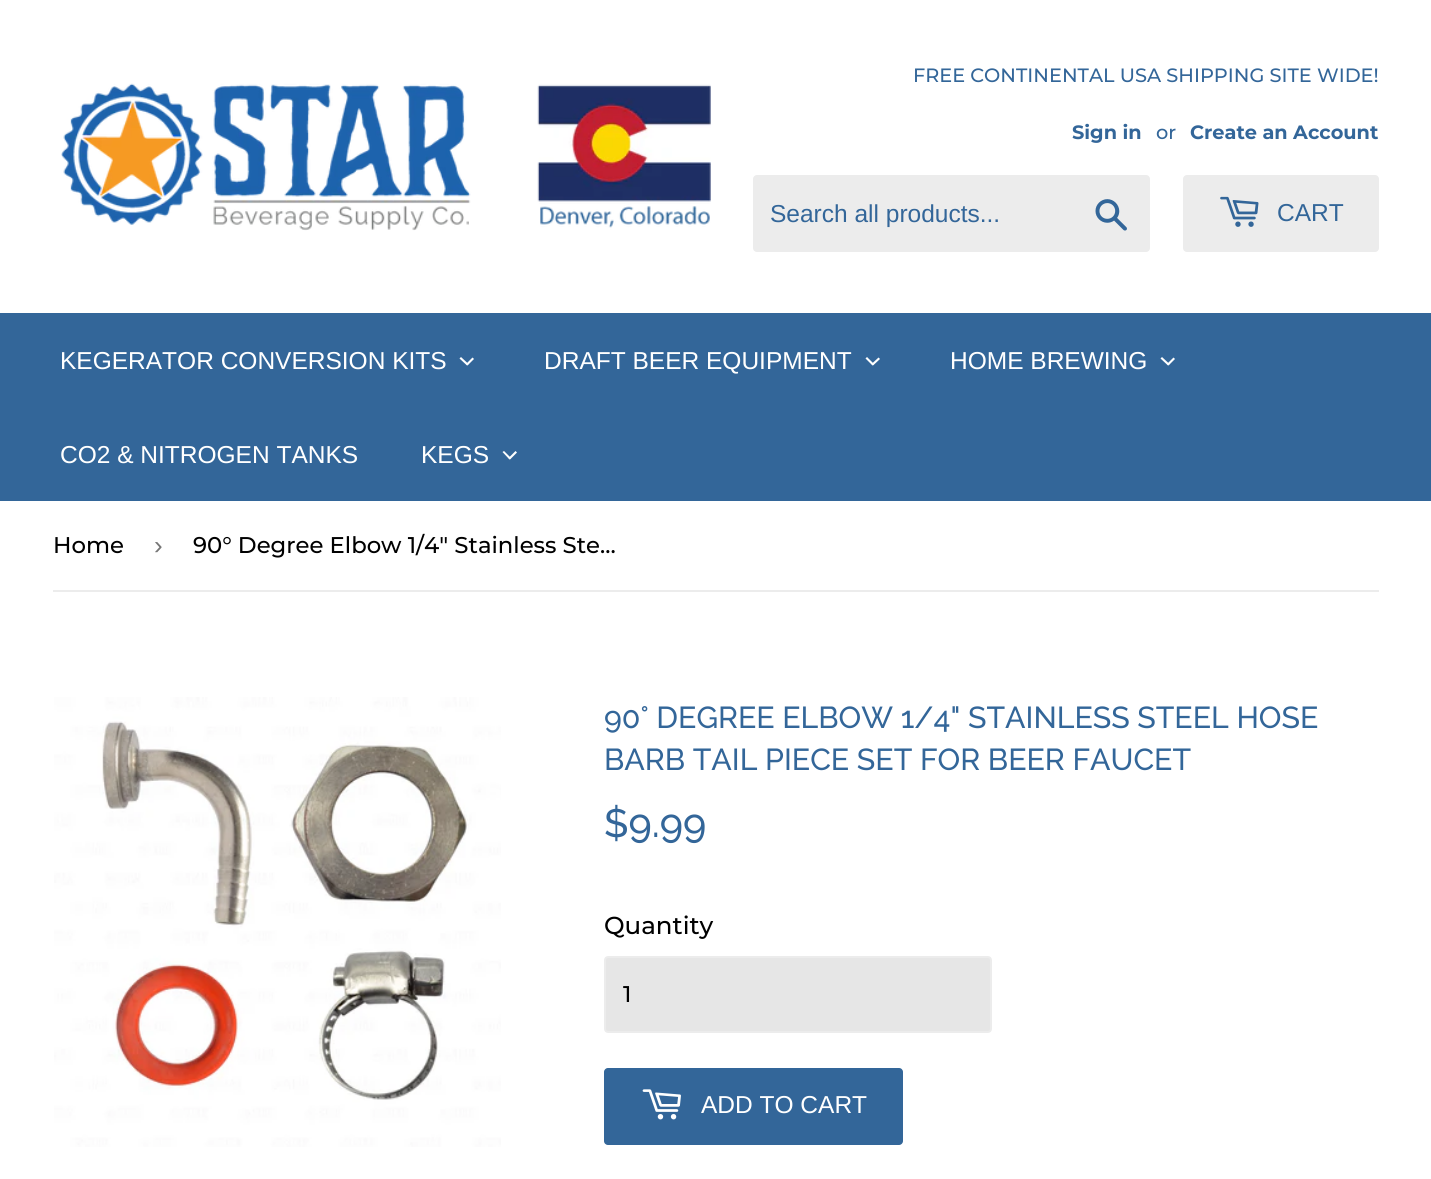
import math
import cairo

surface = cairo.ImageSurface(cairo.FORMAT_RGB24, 1431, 1179)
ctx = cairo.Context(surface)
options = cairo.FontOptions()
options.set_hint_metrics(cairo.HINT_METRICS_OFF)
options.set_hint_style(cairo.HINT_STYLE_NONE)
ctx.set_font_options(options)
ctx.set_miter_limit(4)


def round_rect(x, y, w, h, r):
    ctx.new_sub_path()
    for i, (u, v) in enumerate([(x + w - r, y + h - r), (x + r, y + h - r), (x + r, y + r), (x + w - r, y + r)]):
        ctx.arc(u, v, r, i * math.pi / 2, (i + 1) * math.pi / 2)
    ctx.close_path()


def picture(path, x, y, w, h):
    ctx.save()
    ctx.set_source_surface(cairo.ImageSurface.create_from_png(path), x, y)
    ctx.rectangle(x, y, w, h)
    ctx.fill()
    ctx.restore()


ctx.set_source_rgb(1, 1, 1)
ctx.paint()
picture("img1.png", 61, 83, 650, 148)
ctx.select_font_face("Montserrat Medium")
ctx.set_font_size(19.3)
ctx.set_source_rgb(0.2, 0.4, 0.6)
ctx.move_to(913, 82)
ctx.show_text("FREE CONTINENTAL USA SHIPPING SITE WIDE!")
ctx.select_font_face("Montserrat", cairo.FONT_SLANT_NORMAL, cairo.FONT_WEIGHT_BOLD)
ctx.move_to(1072, 139)
ctx.show_text("Sign in")
ctx.select_font_face("Montserrat Medium")
ctx.move_to(1156, 139)
ctx.show_text("or")
ctx.select_font_face("Montserrat", cairo.FONT_SLANT_NORMAL, cairo.FONT_WEIGHT_BOLD)
ctx.move_to(1190, 139)
ctx.show_text("Create an Account")
ctx.set_source_rgb(0.925, 0.925, 0.925)
round_rect(753, 175, 397, 77, 4)
ctx.fill()
ctx.select_font_face("Arimo")
ctx.set_font_size(24.5)
ctx.set_source_rgb(0.2, 0.4, 0.6)
ctx.move_to(770, 222)
ctx.show_text("Search all products...")
picture("img2.png", 1095, 199, 32, 32)
ctx.set_source_rgb(0.925, 0.925, 0.925)
round_rect(1183, 175, 196, 77, 4)
ctx.fill()
picture("img3.png", 1220, 196, 39, 31)
ctx.set_source_rgb(0.2, 0.4, 0.6)
ctx.move_to(1277, 221)
ctx.show_text("CART")
ctx.rectangle(0, 313, 1431, 188)
ctx.fill()
ctx.set_source_rgb(1, 1, 1)
ctx.move_to(60, 369)
ctx.show_text("KEGERATOR CONVERSION KITS")
ctx.new_path()
ctx.move_to(472.5, 357.5)
ctx.line_to(474, 359)
ctx.line_to(467.5, 365.5)
ctx.line_to(466, 364)
ctx.close_path()
ctx.fill()
ctx.new_path()
ctx.move_to(461, 357)
ctx.line_to(468.5, 364)
ctx.line_to(467, 365.5)
ctx.line_to(459.5, 358.5)
ctx.close_path()
ctx.fill()
ctx.move_to(544, 369)
ctx.show_text("DRAFT BEER EQUIPMENT")
ctx.new_path()
ctx.move_to(878.5, 357.5)
ctx.line_to(880, 359)
ctx.line_to(873, 365.5)
ctx.line_to(871.5, 364)
ctx.close_path()
ctx.fill()
ctx.new_path()
ctx.move_to(867, 357)
ctx.line_to(874, 364)
ctx.line_to(872.5, 365.5)
ctx.line_to(865.5, 358.5)
ctx.close_path()
ctx.fill()
ctx.move_to(950, 369)
ctx.show_text("HOME BREWING")
ctx.new_path()
ctx.move_to(1173.5, 357.5)
ctx.line_to(1175, 359)
ctx.line_to(1168.5, 365.5)
ctx.line_to(1167, 364)
ctx.close_path()
ctx.fill()
ctx.new_path()
ctx.move_to(1162, 357)
ctx.line_to(1169.5, 364)
ctx.line_to(1168, 365.5)
ctx.line_to(1160.5, 358.5)
ctx.close_path()
ctx.fill()
ctx.move_to(60, 463)
ctx.show_text("CO2 & NITROGEN TANKS")
ctx.move_to(421, 463)
ctx.show_text("KEGS")
ctx.new_path()
ctx.move_to(515.5, 451)
ctx.line_to(517, 452.5)
ctx.line_to(510, 459.5)
ctx.line_to(508.5, 458)
ctx.close_path()
ctx.fill()
ctx.new_path()
ctx.move_to(504, 451)
ctx.line_to(511, 458)
ctx.line_to(509.5, 459.5)
ctx.line_to(502.5, 452)
ctx.close_path()
ctx.fill()
ctx.set_source_rgb(0.925, 0.925, 0.925)
ctx.rectangle(53, 590, 1326, 2)
ctx.fill()
ctx.select_font_face("Montserrat Medium")
ctx.set_font_size(22.75)
ctx.set_source_rgb(0, 0, 0)
ctx.move_to(53, 553)
ctx.show_text("Home")
ctx.select_font_face("Liberation Sans")
ctx.set_font_size(26)
ctx.set_source_rgb(0.463, 0.463, 0.463)
ctx.move_to(154, 554)
ctx.show_text("›")
ctx.select_font_face("Montserrat Medium")
ctx.set_font_size(22.75)
ctx.set_source_rgb(0, 0, 0)
ctx.move_to(193, 553)
ctx.show_text("90° Degree Elbow 1/4\" Stainless Ste…")
picture("img4.png", 54, 697, 447, 450)
ctx.select_font_face("Raleway Medium")
ctx.set_font_size(30.3)
ctx.set_source_rgb(0.2, 0.4, 0.6)
ctx.move_to(604, 728)
ctx.show_text("90° DEGREE ELBOW 1/4\" STAINLESS STEEL HOSE")
ctx.move_to(604, 770)
ctx.show_text("BARB TAIL PIECE SET FOR BEER FAUCET")
ctx.set_font_size(39.5)
ctx.move_to(604, 837)
ctx.show_text("$9.99")
ctx.select_font_face("Montserrat Medium")
ctx.set_font_size(24.5)
ctx.set_source_rgb(0, 0, 0)
ctx.move_to(604, 934)
ctx.show_text("Quantity")
ctx.set_source_rgb(0.902, 0.902, 0.902)
round_rect(605, 957, 386, 75, 3)
ctx.fill_preserve()
ctx.set_source_rgb(0.925, 0.925, 0.925)
ctx.stroke()
ctx.set_font_size(22.75)
ctx.set_source_rgb(0, 0, 0)
ctx.move_to(623, 1002)
ctx.show_text("1")
ctx.set_source_rgb(0.2, 0.4, 0.6)
round_rect(604, 1068, 299, 77, 4)
ctx.fill()
picture("img5.png", 642, 1089, 39, 31)
ctx.select_font_face("Arimo")
ctx.set_font_size(24.5)
ctx.set_source_rgb(1, 1, 1)
ctx.move_to(701, 1113)
ctx.show_text("ADD TO CART")
surface.write_to_png("page.png")
